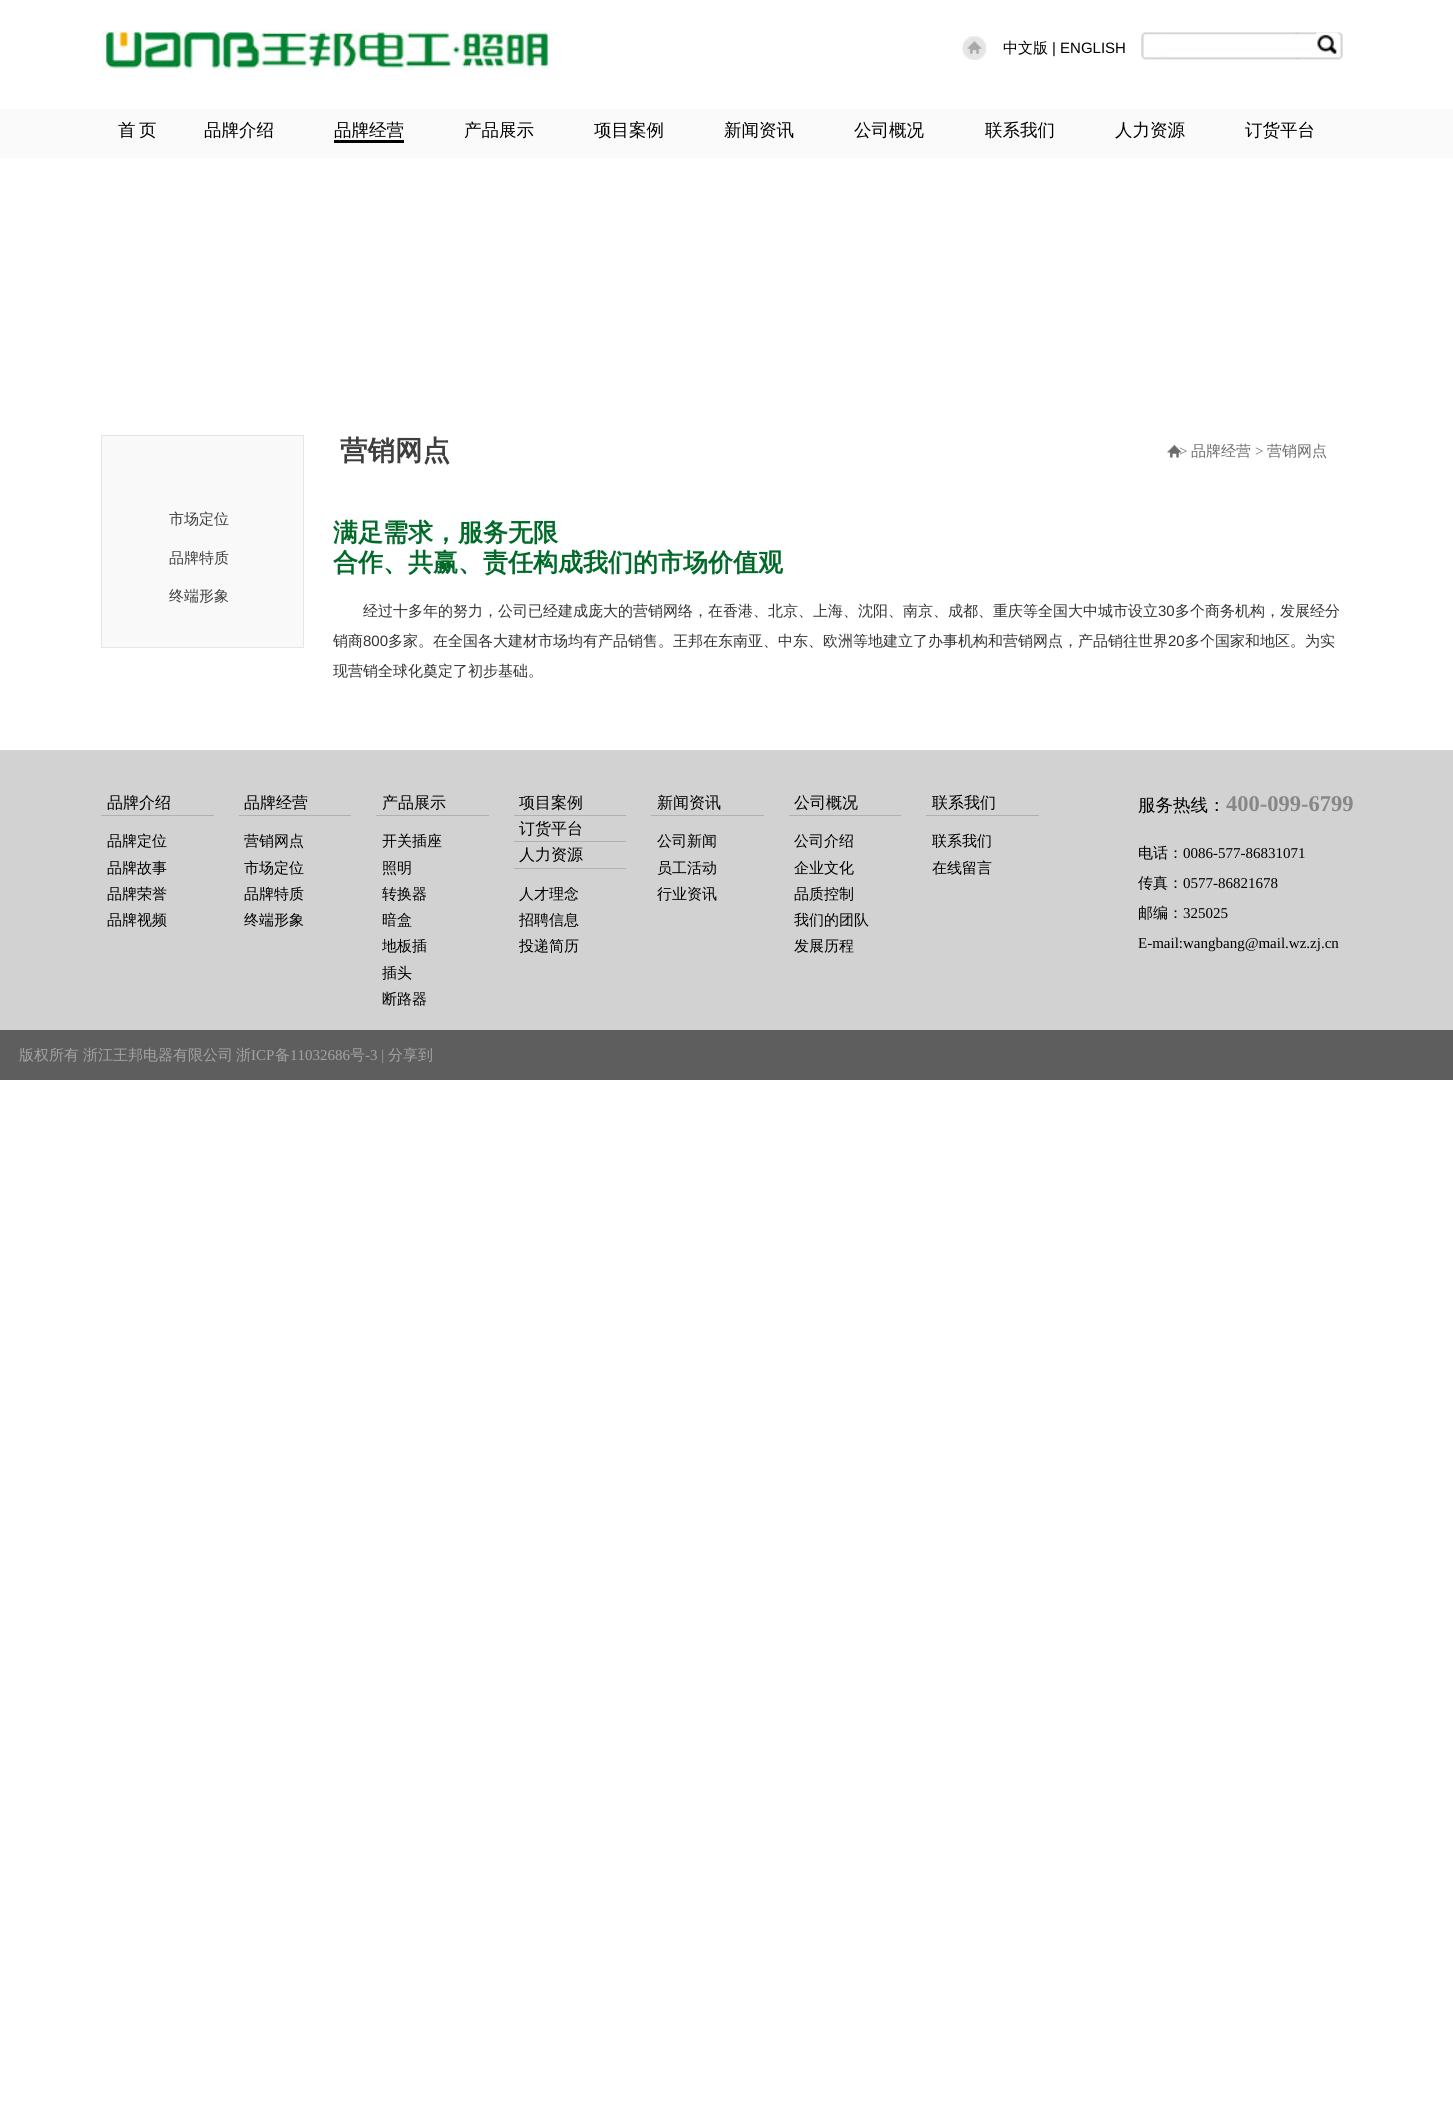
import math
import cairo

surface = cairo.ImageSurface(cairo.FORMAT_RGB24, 1453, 2116)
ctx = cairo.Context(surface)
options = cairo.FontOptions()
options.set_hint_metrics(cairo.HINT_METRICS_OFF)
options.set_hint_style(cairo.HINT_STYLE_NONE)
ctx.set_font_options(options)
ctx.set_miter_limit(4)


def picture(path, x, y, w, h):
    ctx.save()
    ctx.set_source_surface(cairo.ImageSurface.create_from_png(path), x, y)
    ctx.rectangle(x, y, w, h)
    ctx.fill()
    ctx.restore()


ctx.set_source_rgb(1, 1, 1)
ctx.paint()
picture("img1.png", 101, 30, 450, 40)
picture("img2.png", 962, 36, 25, 24)
ctx.select_font_face("WenQuanYi Zen Hei Medium")
ctx.set_font_size(15)
ctx.set_source_rgb(0, 0, 0)
ctx.move_to(1003, 53)
ctx.show_text("中文版")
ctx.select_font_face("Liberation Sans")
ctx.move_to(1052, 53)
ctx.show_text("| ENGLISH")
picture("img3.png", 1141, 32, 202, 28)
picture("img4.png", 1316, 32, 23, 24)
ctx.set_source_rgb(0.98, 0.98, 0.98)
ctx.rectangle(0, 109, 1453, 49)
ctx.fill()
ctx.select_font_face("WenQuanYi Zen Hei Medium")
ctx.set_font_size(17.5)
ctx.set_source_rgb(0, 0, 0)
ctx.move_to(118, 136)
ctx.show_text("首")
ctx.move_to(139, 136)
ctx.show_text("页")
ctx.move_to(204, 136)
ctx.show_text("品牌介绍")
ctx.move_to(334, 136)
ctx.show_text("品牌经营")
ctx.rectangle(334, 140, 70, 3)
ctx.fill()
ctx.move_to(464, 136)
ctx.show_text("产品展示")
ctx.move_to(594, 136)
ctx.show_text("项目案例")
ctx.move_to(724, 136)
ctx.show_text("新闻资讯")
ctx.move_to(854, 136)
ctx.show_text("公司概况")
ctx.move_to(985, 136)
ctx.show_text("联系我们")
ctx.move_to(1115, 136)
ctx.show_text("人力资源")
ctx.move_to(1245, 136)
ctx.show_text("订货平台")
ctx.set_source_rgb(0.973, 0.973, 0.973)
ctx.rectangle(101.5, 435.5, 202, 212)
ctx.fill_preserve()
ctx.set_source_rgb(0.902, 0.902, 0.902)
ctx.set_line_width(1)
ctx.stroke()
ctx.set_font_size(15)
ctx.set_source_rgb(0.243, 0.243, 0.243)
ctx.move_to(169, 524)
ctx.show_text("市场定位")
ctx.move_to(169, 563)
ctx.show_text("品牌特质")
ctx.move_to(169, 601)
ctx.show_text("终端形象")
ctx.select_font_face("WenQuanYi Zen Hei", cairo.FONT_SLANT_NORMAL, cairo.FONT_WEIGHT_BOLD)
ctx.set_font_size(27.5)
ctx.move_to(340, 460)
ctx.show_text("营销网点")
ctx.select_font_face("Liberation Serif")
ctx.set_font_size(15)
ctx.set_source_rgb(0.42, 0.42, 0.42)
ctx.move_to(1179, 456)
ctx.show_text(">")
picture("img5.png", 1167, 445, 15, 13)
ctx.select_font_face("WenQuanYi Zen Hei Medium")
ctx.move_to(1191, 456)
ctx.show_text("品牌经营")
ctx.select_font_face("Liberation Serif")
ctx.move_to(1255, 456)
ctx.show_text(">")
ctx.select_font_face("WenQuanYi Zen Hei Medium")
ctx.move_to(1267, 456)
ctx.show_text("营销网点")
ctx.select_font_face("WenQuanYi Zen Hei", cairo.FONT_SLANT_NORMAL, cairo.FONT_WEIGHT_BOLD)
ctx.set_font_size(25)
ctx.set_source_rgb(0.008, 0.416, 0.161)
ctx.move_to(333, 541)
ctx.show_text("满足需求，服务无限")
ctx.move_to(333, 571)
ctx.show_text("合作、共赢、责任构成我们的市场价值观")
ctx.select_font_face("WenQuanYi Zen Hei Medium")
ctx.set_font_size(15)
ctx.set_source_rgb(0.2, 0.2, 0.2)
ctx.move_to(363, 616)
ctx.show_text("经过十多年的努力，公司已经建成庞大的营销网络，在香港、北京、上海、沈阳、南京、成都、重庆等全国大中城市设立")
ctx.select_font_face("Liberation Sans")
ctx.move_to(1158, 616)
ctx.show_text("30")
ctx.select_font_face("WenQuanYi Zen Hei Medium")
ctx.move_to(1175, 616)
ctx.show_text("多个商务机构，发展经分")
ctx.move_to(333, 646)
ctx.show_text("销商")
ctx.select_font_face("Liberation Sans")
ctx.move_to(363, 646)
ctx.show_text("800")
ctx.select_font_face("WenQuanYi Zen Hei Medium")
ctx.move_to(388, 646)
ctx.show_text("多家。在全国各大建材市场均有产品销售。王邦在东南亚、中东、欧洲等地建立了办事机构和营销网点，产品销往世界")
ctx.select_font_face("Liberation Sans")
ctx.move_to(1168, 646)
ctx.show_text("20")
ctx.select_font_face("WenQuanYi Zen Hei Medium")
ctx.move_to(1185, 646)
ctx.show_text("多个国家和地区。为实")
ctx.move_to(333, 676)
ctx.show_text("现营销全球化奠定了初步基础。")
ctx.set_source_rgb(0.824, 0.824, 0.824)
ctx.rectangle(0, 750, 1453, 280)
ctx.fill()
ctx.set_source_rgb(0.69, 0.69, 0.69)
ctx.rectangle(101, 815, 113, 1)
ctx.fill()
ctx.set_font_size(16)
ctx.set_source_rgb(0, 0, 0)
ctx.move_to(107, 808)
ctx.show_text("品牌介绍")
ctx.set_font_size(15)
ctx.move_to(107, 846)
ctx.show_text("品牌定位")
ctx.move_to(107, 873)
ctx.show_text("品牌故事")
ctx.move_to(107, 899)
ctx.show_text("品牌荣誉")
ctx.move_to(107, 925)
ctx.show_text("品牌视频")
ctx.set_source_rgb(0.69, 0.69, 0.69)
ctx.rectangle(239, 815, 112, 1)
ctx.fill()
ctx.set_font_size(16)
ctx.set_source_rgb(0, 0, 0)
ctx.move_to(244, 808)
ctx.show_text("品牌经营")
ctx.set_font_size(15)
ctx.move_to(244, 846)
ctx.show_text("营销网点")
ctx.move_to(244, 873)
ctx.show_text("市场定位")
ctx.move_to(244, 899)
ctx.show_text("品牌特质")
ctx.move_to(244, 925)
ctx.show_text("终端形象")
ctx.set_source_rgb(0.69, 0.69, 0.69)
ctx.rectangle(376, 815, 113, 1)
ctx.fill()
ctx.set_font_size(16)
ctx.set_source_rgb(0, 0, 0)
ctx.move_to(382, 808)
ctx.show_text("产品展示")
ctx.set_font_size(15)
ctx.move_to(382, 846)
ctx.show_text("开关插座")
ctx.move_to(382, 873)
ctx.show_text("照明")
ctx.move_to(382, 899)
ctx.show_text("转换器")
ctx.move_to(382, 925)
ctx.show_text("暗盒")
ctx.move_to(382, 951)
ctx.show_text("地板插")
ctx.move_to(382, 978)
ctx.show_text("插头")
ctx.move_to(382, 1004)
ctx.show_text("断路器")
ctx.set_source_rgb(0.69, 0.69, 0.69)
ctx.rectangle(514, 815, 112, 1)
ctx.fill()
ctx.set_font_size(16)
ctx.set_source_rgb(0, 0, 0)
ctx.move_to(519, 808)
ctx.show_text("项目案例")
ctx.set_source_rgb(0.69, 0.69, 0.69)
ctx.rectangle(514, 841, 112, 1)
ctx.fill()
ctx.set_source_rgb(0, 0, 0)
ctx.move_to(519, 834)
ctx.show_text("订货平台")
ctx.set_source_rgb(0.69, 0.69, 0.69)
ctx.rectangle(514, 868, 112, 1)
ctx.fill()
ctx.set_source_rgb(0, 0, 0)
ctx.move_to(519, 860)
ctx.show_text("人力资源")
ctx.set_font_size(15)
ctx.move_to(519, 899)
ctx.show_text("人才理念")
ctx.move_to(519, 925)
ctx.show_text("招聘信息")
ctx.move_to(519, 951)
ctx.show_text("投递简历")
ctx.set_source_rgb(0.69, 0.69, 0.69)
ctx.rectangle(651, 815, 113, 1)
ctx.fill()
ctx.set_font_size(16)
ctx.set_source_rgb(0, 0, 0)
ctx.move_to(657, 808)
ctx.show_text("新闻资讯")
ctx.set_font_size(15)
ctx.move_to(657, 846)
ctx.show_text("公司新闻")
ctx.move_to(657, 873)
ctx.show_text("员工活动")
ctx.move_to(657, 899)
ctx.show_text("行业资讯")
ctx.set_source_rgb(0.69, 0.69, 0.69)
ctx.rectangle(789, 815, 112, 1)
ctx.fill()
ctx.set_font_size(16)
ctx.set_source_rgb(0, 0, 0)
ctx.move_to(794, 808)
ctx.show_text("公司概况")
ctx.set_font_size(15)
ctx.move_to(794, 846)
ctx.show_text("公司介绍")
ctx.move_to(794, 873)
ctx.show_text("企业文化")
ctx.move_to(794, 899)
ctx.show_text("品质控制")
ctx.move_to(794, 925)
ctx.show_text("我们的团队")
ctx.move_to(794, 951)
ctx.show_text("发展历程")
ctx.set_source_rgb(0.69, 0.69, 0.69)
ctx.rectangle(926, 815, 113, 1)
ctx.fill()
ctx.set_font_size(16)
ctx.set_source_rgb(0, 0, 0)
ctx.move_to(932, 808)
ctx.show_text("联系我们")
ctx.set_font_size(15)
ctx.move_to(932, 846)
ctx.show_text("联系我们")
ctx.move_to(932, 873)
ctx.show_text("在线留言")
ctx.set_font_size(17.5)
ctx.move_to(1138, 811)
ctx.show_text("服务热线：")
ctx.select_font_face("Liberation Serif", cairo.FONT_SLANT_NORMAL, cairo.FONT_WEIGHT_BOLD)
ctx.set_font_size(22.5)
ctx.set_source_rgb(0.529, 0.529, 0.529)
ctx.move_to(1226, 811)
ctx.show_text("400-099-6799")
ctx.select_font_face("WenQuanYi Zen Hei Medium")
ctx.set_font_size(15)
ctx.set_source_rgb(0, 0, 0)
ctx.move_to(1138, 858)
ctx.show_text("电话：")
ctx.select_font_face("Liberation Serif")
ctx.move_to(1183, 858)
ctx.show_text("0086-577-86831071")
ctx.select_font_face("WenQuanYi Zen Hei Medium")
ctx.move_to(1138, 888)
ctx.show_text("传真：")
ctx.select_font_face("Liberation Serif")
ctx.move_to(1183, 888)
ctx.show_text("0577-86821678")
ctx.select_font_face("WenQuanYi Zen Hei Medium")
ctx.move_to(1138, 918)
ctx.show_text("邮编：")
ctx.select_font_face("Liberation Serif")
ctx.move_to(1183, 918)
ctx.show_text("325025")
ctx.move_to(1138, 948)
ctx.show_text("E-mail:wangbang@mail.wz.zj.cn")
ctx.set_source_rgb(0.369, 0.369, 0.369)
ctx.rectangle(0, 1030, 1453, 50)
ctx.fill()
ctx.select_font_face("WenQuanYi Zen Hei Medium")
ctx.set_source_rgb(0.643, 0.639, 0.639)
ctx.move_to(19, 1060)
ctx.show_text("版权所有")
ctx.move_to(83, 1060)
ctx.show_text("浙江王邦电器有限公司")
ctx.move_to(236, 1060)
ctx.show_text("浙")
ctx.select_font_face("Liberation Serif")
ctx.move_to(251, 1060)
ctx.show_text("ICP")
ctx.select_font_face("WenQuanYi Zen Hei Medium")
ctx.move_to(275, 1060)
ctx.show_text("备")
ctx.select_font_face("Liberation Serif")
ctx.move_to(290, 1060)
ctx.show_text("11032686")
ctx.select_font_face("WenQuanYi Zen Hei Medium")
ctx.move_to(350, 1060)
ctx.show_text("号")
ctx.select_font_face("Liberation Serif")
ctx.move_to(365, 1060)
ctx.show_text("-3 |")
ctx.select_font_face("WenQuanYi Zen Hei Medium")
ctx.move_to(388, 1060)
ctx.show_text("分享到")
surface.write_to_png("page.png")
